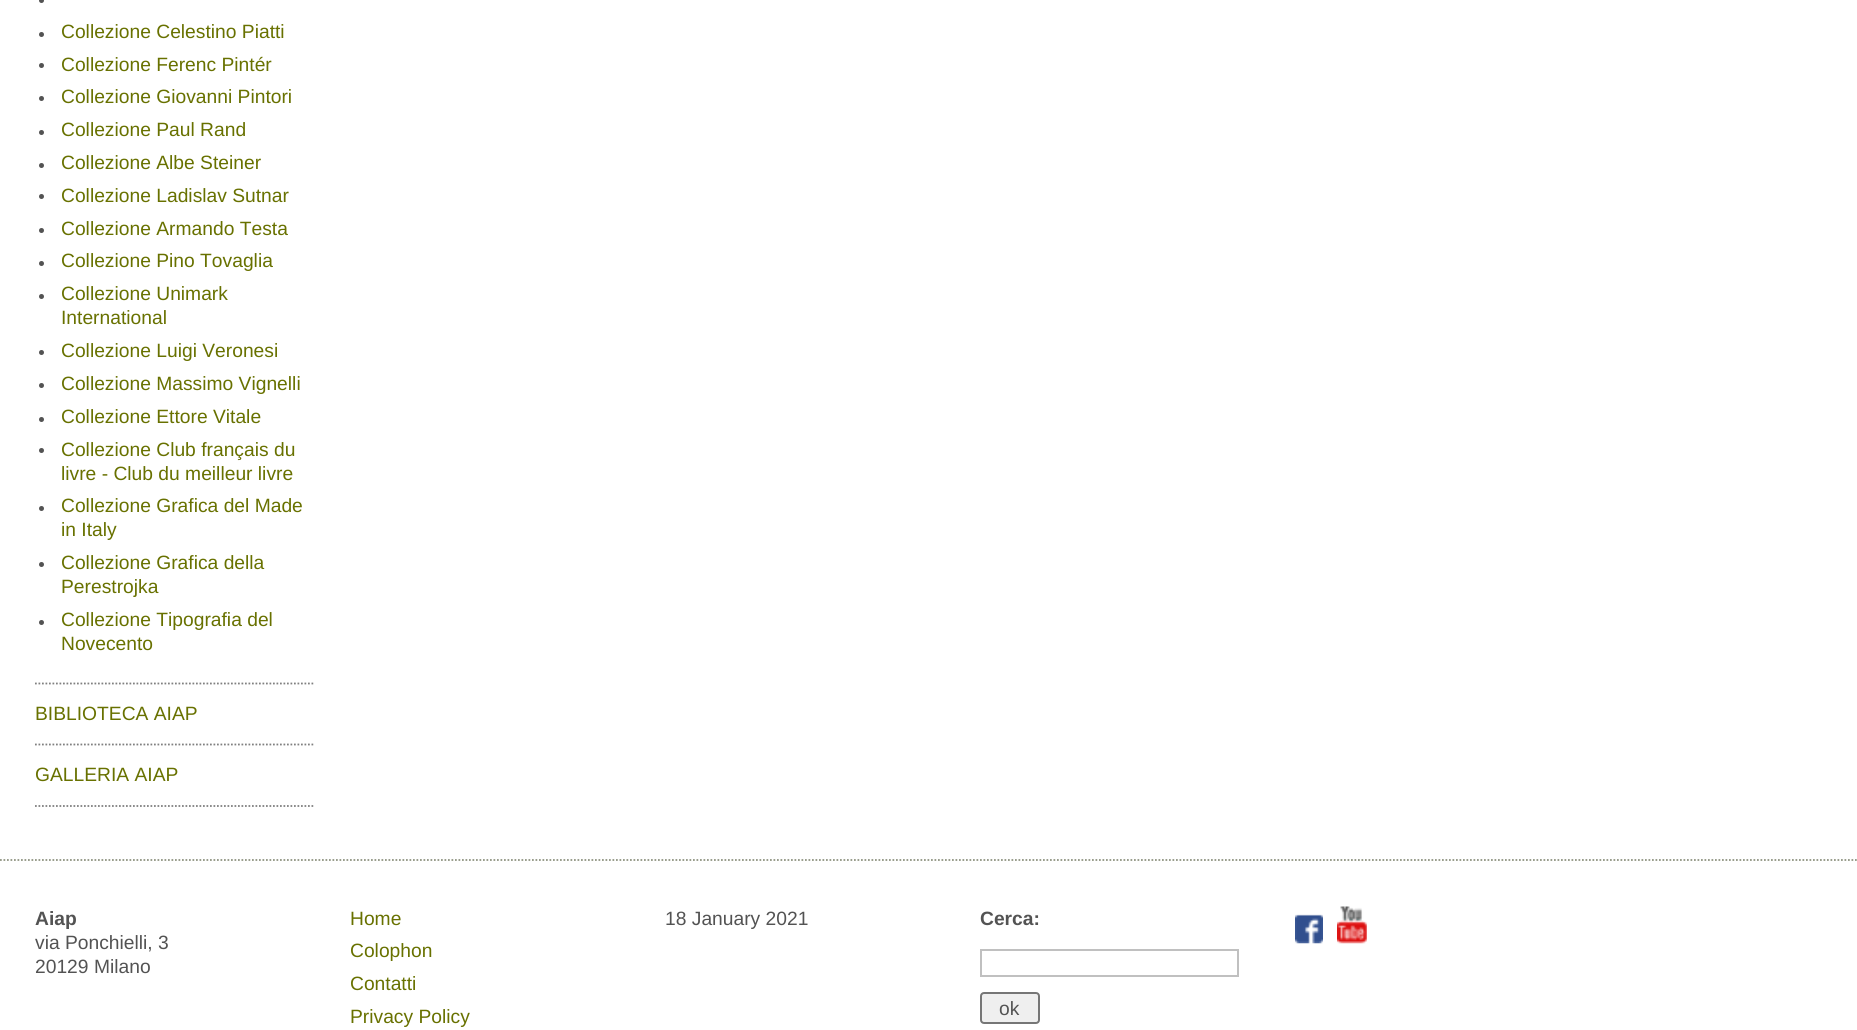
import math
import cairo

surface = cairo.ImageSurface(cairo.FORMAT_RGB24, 1857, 1030)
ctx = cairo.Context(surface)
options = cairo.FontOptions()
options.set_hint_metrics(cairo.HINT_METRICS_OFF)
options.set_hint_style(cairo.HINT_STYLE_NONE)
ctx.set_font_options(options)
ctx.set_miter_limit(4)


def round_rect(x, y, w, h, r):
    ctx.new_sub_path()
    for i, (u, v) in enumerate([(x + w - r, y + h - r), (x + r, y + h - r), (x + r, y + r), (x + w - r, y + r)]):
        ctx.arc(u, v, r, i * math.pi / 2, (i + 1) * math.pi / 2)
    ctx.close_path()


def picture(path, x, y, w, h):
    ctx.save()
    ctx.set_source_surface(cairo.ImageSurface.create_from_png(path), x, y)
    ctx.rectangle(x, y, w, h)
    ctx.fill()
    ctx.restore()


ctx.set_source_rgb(1, 1, 1)
ctx.paint()
ctx.new_path()
ctx.move_to(35, 683.5)
ctx.line_to(315, 683.5)
ctx.set_source_rgb(0.502, 0.502, 0.502)
ctx.set_line_width(1.8)
ctx.set_dash([1.75, 1.75])
ctx.stroke()
ctx.set_source_rgb(0.325, 0.325, 0.325)
ctx.arc(41.5, 0.5, 2.5, 0, 2 * math.pi)
ctx.fill()
ctx.arc(41.5, 34.5, 2.5, 0, 2 * math.pi)
ctx.fill()
ctx.select_font_face("Liberation Sans")
ctx.set_font_size(19.25)
ctx.set_source_rgb(0.408, 0.443, 0)
ctx.move_to(61, 38)
ctx.show_text("Collezione Celestino Piatti")
ctx.set_source_rgb(0.325, 0.325, 0.325)
ctx.new_path()
ctx.arc(41.5, 65.5, 2.5, 0, 2 * math.pi)
ctx.fill()
ctx.set_source_rgb(0.408, 0.443, 0)
ctx.move_to(61, 71)
ctx.show_text("Collezione Ferenc Pintér")
ctx.set_source_rgb(0.325, 0.325, 0.325)
ctx.new_path()
ctx.arc(41.5, 98.5, 2.5, 0, 2 * math.pi)
ctx.fill()
ctx.set_source_rgb(0.408, 0.443, 0)
ctx.move_to(61, 103)
ctx.show_text("Collezione Giovanni Pintori")
ctx.set_source_rgb(0.325, 0.325, 0.325)
ctx.new_path()
ctx.arc(41.5, 132.5, 2.5, 0, 2 * math.pi)
ctx.fill()
ctx.set_source_rgb(0.408, 0.443, 0)
ctx.move_to(61, 136)
ctx.show_text("Collezione Paul Rand")
ctx.set_source_rgb(0.325, 0.325, 0.325)
ctx.new_path()
ctx.arc(41.5, 165.5, 2.5, 0, 2 * math.pi)
ctx.fill()
ctx.set_source_rgb(0.408, 0.443, 0)
ctx.move_to(61, 169)
ctx.show_text("Collezione Albe Steiner")
ctx.set_source_rgb(0.325, 0.325, 0.325)
ctx.new_path()
ctx.arc(41.5, 196.5, 2.5, 0, 2 * math.pi)
ctx.fill()
ctx.set_source_rgb(0.408, 0.443, 0)
ctx.move_to(61, 202)
ctx.show_text("Collezione Ladislav Sutnar")
ctx.set_source_rgb(0.325, 0.325, 0.325)
ctx.new_path()
ctx.arc(41.5, 230.5, 2.5, 0, 2 * math.pi)
ctx.fill()
ctx.set_source_rgb(0.408, 0.443, 0)
ctx.move_to(61, 235)
ctx.show_text("Collezione Armando Testa")
ctx.set_source_rgb(0.325, 0.325, 0.325)
ctx.new_path()
ctx.arc(41.5, 263.5, 2.5, 0, 2 * math.pi)
ctx.fill()
ctx.set_source_rgb(0.408, 0.443, 0)
ctx.move_to(61, 267)
ctx.show_text("Collezione Pino Tovaglia")
ctx.set_source_rgb(0.325, 0.325, 0.325)
ctx.new_path()
ctx.arc(41.5, 296.5, 2.5, 0, 2 * math.pi)
ctx.fill()
ctx.set_source_rgb(0.408, 0.443, 0)
ctx.move_to(61, 300)
ctx.show_text("Collezione Unimark")
ctx.move_to(61, 324)
ctx.show_text("International")
ctx.set_source_rgb(0.325, 0.325, 0.325)
ctx.new_path()
ctx.arc(41.5, 352.5, 2.5, 0, 2 * math.pi)
ctx.fill()
ctx.set_source_rgb(0.408, 0.443, 0)
ctx.move_to(61, 357)
ctx.show_text("Collezione Luigi Veronesi")
ctx.set_source_rgb(0.325, 0.325, 0.325)
ctx.new_path()
ctx.arc(41.5, 385.5, 2.5, 0, 2 * math.pi)
ctx.fill()
ctx.set_source_rgb(0.408, 0.443, 0)
ctx.move_to(61, 390)
ctx.show_text("Collezione Massimo Vignelli")
ctx.set_source_rgb(0.325, 0.325, 0.325)
ctx.new_path()
ctx.arc(41.5, 419.5, 2.5, 0, 2 * math.pi)
ctx.fill()
ctx.set_source_rgb(0.408, 0.443, 0)
ctx.move_to(61, 423)
ctx.show_text("Collezione Ettore Vitale")
ctx.set_source_rgb(0.325, 0.325, 0.325)
ctx.new_path()
ctx.arc(41.5, 450.5, 2.5, 0, 2 * math.pi)
ctx.fill()
ctx.set_source_rgb(0.408, 0.443, 0)
ctx.move_to(61, 456)
ctx.show_text("Collezione Club français du")
ctx.move_to(61, 480)
ctx.show_text("livre - Club du meilleur livre")
ctx.set_source_rgb(0.325, 0.325, 0.325)
ctx.new_path()
ctx.arc(41.5, 508.5, 2.5, 0, 2 * math.pi)
ctx.fill()
ctx.set_source_rgb(0.408, 0.443, 0)
ctx.move_to(61, 512)
ctx.show_text("Collezione Grafica del Made")
ctx.move_to(61, 536)
ctx.show_text("in Italy")
ctx.set_source_rgb(0.325, 0.325, 0.325)
ctx.new_path()
ctx.arc(41.5, 564.5, 2.5, 0, 2 * math.pi)
ctx.fill()
ctx.set_source_rgb(0.408, 0.443, 0)
ctx.move_to(61, 569)
ctx.show_text("Collezione Grafica della")
ctx.move_to(61, 593)
ctx.show_text("Perestrojka")
ctx.set_source_rgb(0.325, 0.325, 0.325)
ctx.new_path()
ctx.arc(41.5, 622.5, 2.5, 0, 2 * math.pi)
ctx.fill()
ctx.set_source_rgb(0.408, 0.443, 0)
ctx.move_to(61, 626)
ctx.show_text("Collezione Tipografia del")
ctx.move_to(61, 650)
ctx.show_text("Novecento")
ctx.new_path()
ctx.move_to(35, 744.5)
ctx.line_to(315, 744.5)
ctx.set_source_rgb(0.502, 0.502, 0.502)
ctx.stroke()
ctx.set_source_rgb(0.408, 0.443, 0)
ctx.move_to(35, 720)
ctx.show_text("BIBLIOTECA AIAP")
ctx.new_path()
ctx.move_to(35, 806)
ctx.line_to(315, 806)
ctx.set_source_rgb(0.502, 0.502, 0.502)
ctx.stroke()
ctx.set_source_rgb(0.408, 0.443, 0)
ctx.move_to(35, 781)
ctx.show_text("GALLERIA AIAP")
ctx.new_path()
ctx.move_to(0, 860)
ctx.line_to(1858.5, 860)
ctx.set_source_rgb(0.561, 0.576, 0.506)
ctx.stroke()
ctx.select_font_face("Liberation Sans", cairo.FONT_SLANT_NORMAL, cairo.FONT_WEIGHT_BOLD)
ctx.set_source_rgb(0.325, 0.325, 0.325)
ctx.move_to(35, 925)
ctx.show_text("Aiap")
ctx.select_font_face("Liberation Sans")
ctx.move_to(35, 949)
ctx.show_text("via Ponchielli, 3")
ctx.move_to(35, 973)
ctx.show_text("20129 Milano")
ctx.set_source_rgb(0.408, 0.443, 0)
ctx.move_to(350, 925)
ctx.show_text("Home")
ctx.move_to(350, 957)
ctx.show_text("Colophon")
ctx.move_to(350, 990)
ctx.show_text("Contatti")
ctx.move_to(350, 1023)
ctx.show_text("Privacy Policy")
ctx.set_source_rgb(0.325, 0.325, 0.325)
ctx.move_to(665, 925)
ctx.show_text("18 January 2021")
ctx.select_font_face("Liberation Sans", cairo.FONT_SLANT_NORMAL, cairo.FONT_WEIGHT_BOLD)
ctx.move_to(980, 925)
ctx.show_text("Cerca:")
ctx.rectangle(981, 950, 257, 26)
ctx.set_source_rgb(0.753, 0.753, 0.753)
ctx.set_line_width(2)
ctx.set_dash([])
ctx.stroke()
ctx.set_source_rgb(0.937, 0.937, 0.937)
round_rect(981, 993, 58, 30, 3)
ctx.fill_preserve()
ctx.set_source_rgb(0.463, 0.463, 0.463)
ctx.stroke()
ctx.select_font_face("Liberation Sans")
ctx.set_source_rgb(0.325, 0.325, 0.325)
ctx.move_to(999, 1015)
ctx.show_text("ok")
picture("img1.png", 1295, 914, 28, 30)
picture("img2.png", 1337, 906, 30, 38)
surface.write_to_png("page.png")
